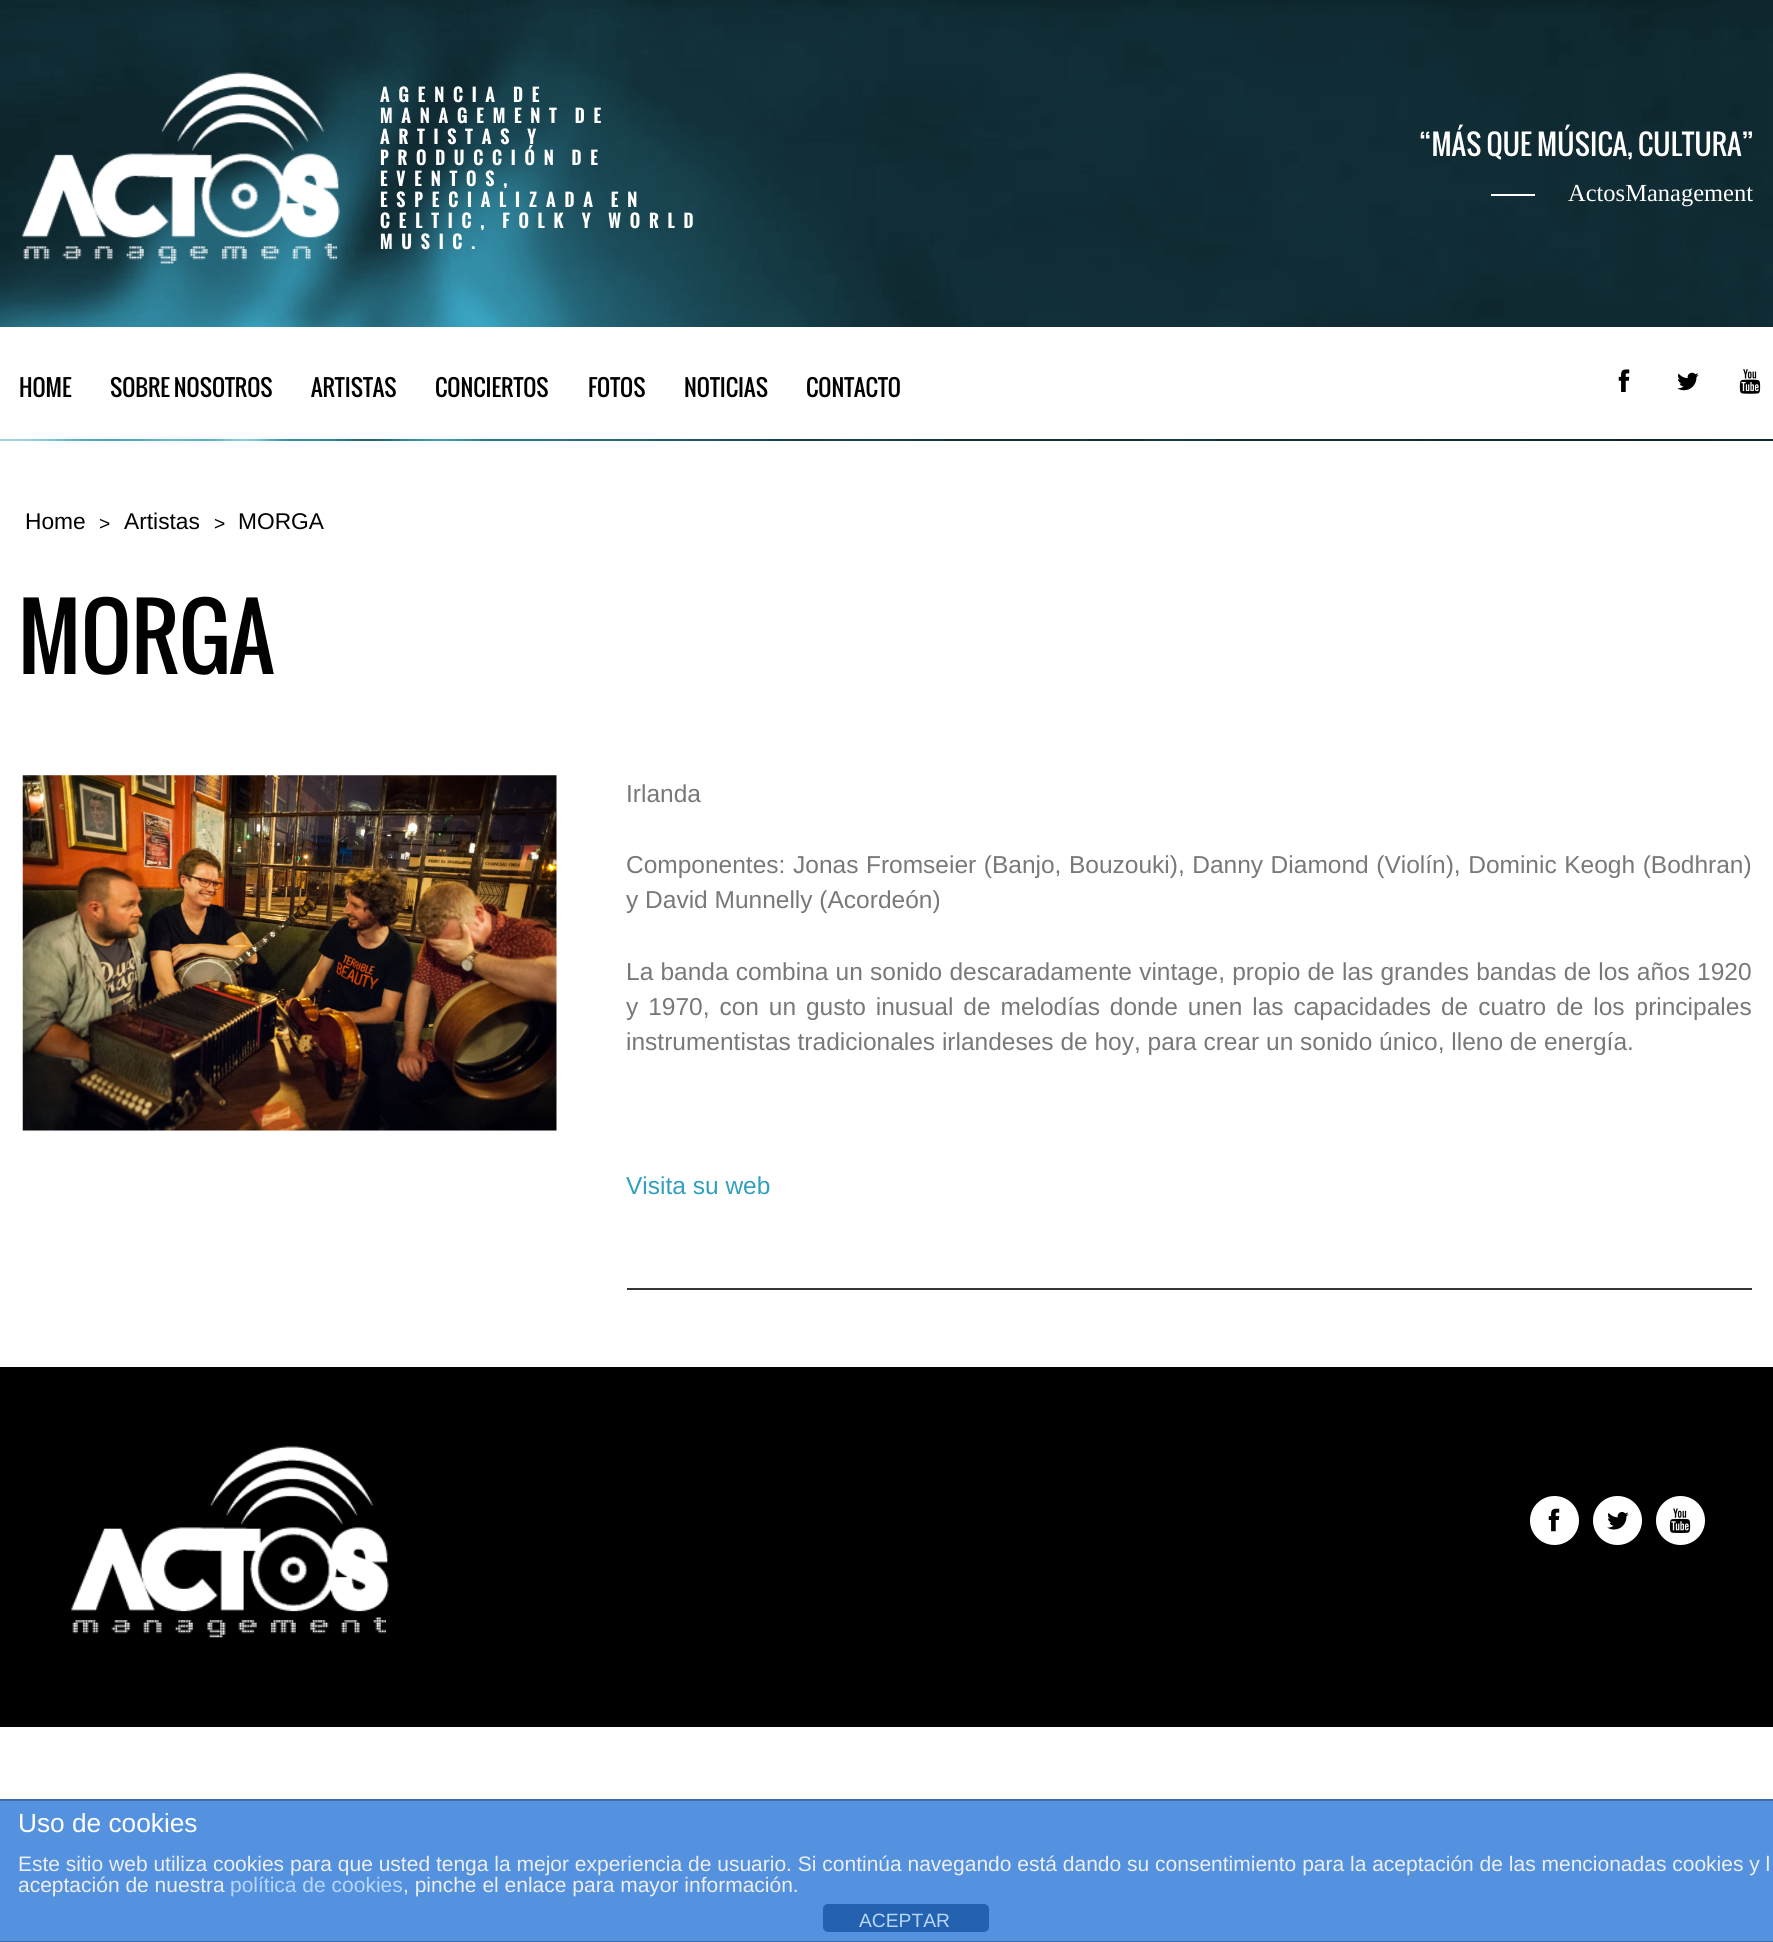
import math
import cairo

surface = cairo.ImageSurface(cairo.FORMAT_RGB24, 1773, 1942)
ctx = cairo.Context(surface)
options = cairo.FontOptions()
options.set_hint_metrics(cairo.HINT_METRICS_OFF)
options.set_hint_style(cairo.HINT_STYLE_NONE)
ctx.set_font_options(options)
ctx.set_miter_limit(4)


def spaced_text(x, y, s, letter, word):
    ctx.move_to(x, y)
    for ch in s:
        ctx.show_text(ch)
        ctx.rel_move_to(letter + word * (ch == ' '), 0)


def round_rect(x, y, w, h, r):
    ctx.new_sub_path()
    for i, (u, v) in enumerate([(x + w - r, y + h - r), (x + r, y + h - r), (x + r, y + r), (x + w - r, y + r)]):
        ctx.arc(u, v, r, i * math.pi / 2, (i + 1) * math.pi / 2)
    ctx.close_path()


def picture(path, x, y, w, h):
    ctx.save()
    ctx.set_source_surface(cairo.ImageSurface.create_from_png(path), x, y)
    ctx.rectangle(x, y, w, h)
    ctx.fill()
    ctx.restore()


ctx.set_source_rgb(1, 1, 1)
ctx.paint()
picture("img1.png", 0, 0, 1773, 441)
picture("img2.png", 22, 72, 318, 192)
ctx.select_font_face("Oswald", cairo.FONT_SLANT_NORMAL, cairo.FONT_WEIGHT_BOLD)
ctx.set_font_size(17.5)
ctx.set_source_rgb(1, 1, 1)
spaced_text(380, 102, "AGENCIA DE", 8.75, -2)
spaced_text(380, 123, "MANAGEMENT DE", 8.75, -2)
spaced_text(380, 144, "ARTISTAS Y", 8.75, -2)
spaced_text(380, 165, "PRODUCCIÓN DE", 8.75, -2)
spaced_text(380, 186, "EVENTOS,", 8.75, 0)
spaced_text(380, 207, "ESPECIALIZADA EN", 8.75, -2)
spaced_text(380, 228, "CELTIC, FOLK Y WORLD", 8.75, -2)
spaced_text(380, 249, "MUSIC.", 8.75, 0)
ctx.select_font_face("Oswald")
ctx.set_font_size(28)
spaced_text(1419, 156, "“MÁS QUE MÚSICA, CULTURA”", 0.2, 0)
ctx.rectangle(1491, 194, 44, 2)
ctx.fill()
ctx.select_font_face("Liberation Serif")
ctx.set_font_size(24.5)
ctx.move_to(1568, 201)
ctx.show_text("ActosManagement")
ctx.rectangle(0, 327, 1773, 112)
ctx.fill()
ctx.select_font_face("Oswald")
ctx.set_font_size(22.75)
ctx.set_source_rgb(0.004, 0.004, 0.004)
ctx.move_to(19, 397)
ctx.show_text("HOME")
ctx.move_to(110, 397)
ctx.show_text("SOBRE NOSOTROS")
ctx.move_to(311, 397)
ctx.show_text("ARTISTAS")
ctx.move_to(435, 397)
ctx.show_text("CONCIERTOS")
ctx.move_to(588, 397)
ctx.show_text("FOTOS")
ctx.move_to(684, 397)
ctx.show_text("NOTICIAS")
ctx.move_to(806, 397)
ctx.show_text("CONTACTO")
picture("img3.png", 1618, 369, 12, 23)
picture("img4.png", 1677, 372, 22, 19)
picture("img5.png", 1739, 369, 22, 25)
ctx.select_font_face("Liberation Sans")
ctx.move_to(25, 529)
ctx.show_text("Home")
ctx.set_font_size(19.25)
ctx.move_to(99, 530)
ctx.show_text(">")
ctx.set_font_size(22.75)
ctx.move_to(124, 529)
ctx.show_text("Artistas")
ctx.set_font_size(19.25)
ctx.move_to(214, 530)
ctx.show_text(">")
ctx.set_font_size(22.75)
ctx.move_to(238, 529)
ctx.show_text("MORGA")
ctx.select_font_face("Oswald")
ctx.set_font_size(87.5)
ctx.move_to(18, 674)
ctx.show_text("MORGA")
picture("img6.png", 22, 775, 535, 356)
ctx.select_font_face("Liberation Sans")
ctx.set_font_size(24.5)
ctx.set_source_rgb(0.471, 0.471, 0.471)
ctx.move_to(626, 802)
ctx.show_text("Irlanda")
ctx.move_to(626, 873)
ctx.show_text("Componentes:")
spaced_text(793, 873, "Jonas Fromseier (Banjo, Bouzouki), Danny Diamond (Violín), Dominic Keogh (Bodhran)", 0, 0.75)
ctx.move_to(626, 908)
ctx.show_text("y David Munnelly (Acordeón)")
spaced_text(626, 980, "La banda combina un sonido descaradamente vintage, propio de las grandes bandas de los años 1920", 0, 0.4)
spaced_text(626, 1015, "y 1970, con un gusto inusual de melodías donde unen las capacidades de cuatro de los principales", 0, 3.1)
ctx.move_to(626, 1050)
ctx.show_text("instrumentistas tradicionales irlandeses de hoy, para crear un sonido único, lleno de energía.")
ctx.set_source_rgb(0.192, 0.624, 0.745)
ctx.move_to(626, 1194)
ctx.show_text("Visita su web")
ctx.set_source_rgb(0.208, 0.208, 0.208)
ctx.rectangle(627, 1288, 1125, 2)
ctx.fill()
ctx.set_source_rgb(0, 0, 0)
ctx.rectangle(0, 1367, 1773, 360)
ctx.fill()
picture("img7.png", 71, 1446, 318, 192)
ctx.set_source_rgb(1, 1, 1)
ctx.arc(1554.5, 1520.5, 24.5, 0, 2 * math.pi)
ctx.fill()
picture("img8.png", 1548, 1508, 12, 24)
ctx.arc(1617.5, 1520.5, 24.5, 0, 2 * math.pi)
ctx.fill()
picture("img9.png", 1607, 1512, 22, 18)
ctx.arc(1680.5, 1520.5, 24.5, 0, 2 * math.pi)
ctx.fill()
picture("img10.png", 1669, 1508, 22, 25)
ctx.set_source_rgb(0.329, 0.573, 0.878)
ctx.rectangle(0, 1801, 1773, 140)
ctx.fill()
ctx.set_source_rgb(0.247, 0.427, 0.655)
ctx.rectangle(0, 1799, 1773, 2)
ctx.fill()
ctx.rectangle(0, 1941, 1773, 1)
ctx.fill()
ctx.set_font_size(26.25)
ctx.set_source_rgb(1, 1, 1)
ctx.move_to(18, 1832)
ctx.show_text("Uso de cookies")
ctx.set_font_size(21)
ctx.set_source_rgb(0.933, 0.933, 0.933)
ctx.move_to(18, 1871)
ctx.show_text("Este sitio web utiliza cookies para que usted tenga la mejor experiencia de usuario. Si continúa navegando está dando su consentimiento para la aceptación de las mencionadas cookies y l")
ctx.move_to(18, 1892)
ctx.show_text("aceptación de nuestra")
ctx.set_source_rgb(0.718, 0.843, 1)
ctx.move_to(230, 1892)
ctx.show_text("política de cookies")
ctx.set_source_rgb(0.933, 0.933, 0.933)
ctx.move_to(403, 1892)
ctx.show_text(", pinche el enlace para mayor información.")
ctx.set_source_rgb(0.141, 0.384, 0.69)
round_rect(823, 1904, 166, 28, 5)
ctx.fill()
ctx.set_font_size(19.25)
ctx.set_source_rgb(0.718, 0.843, 1)
ctx.move_to(859, 1927)
ctx.show_text("ACEPTAR")
surface.write_to_png("page.png")
